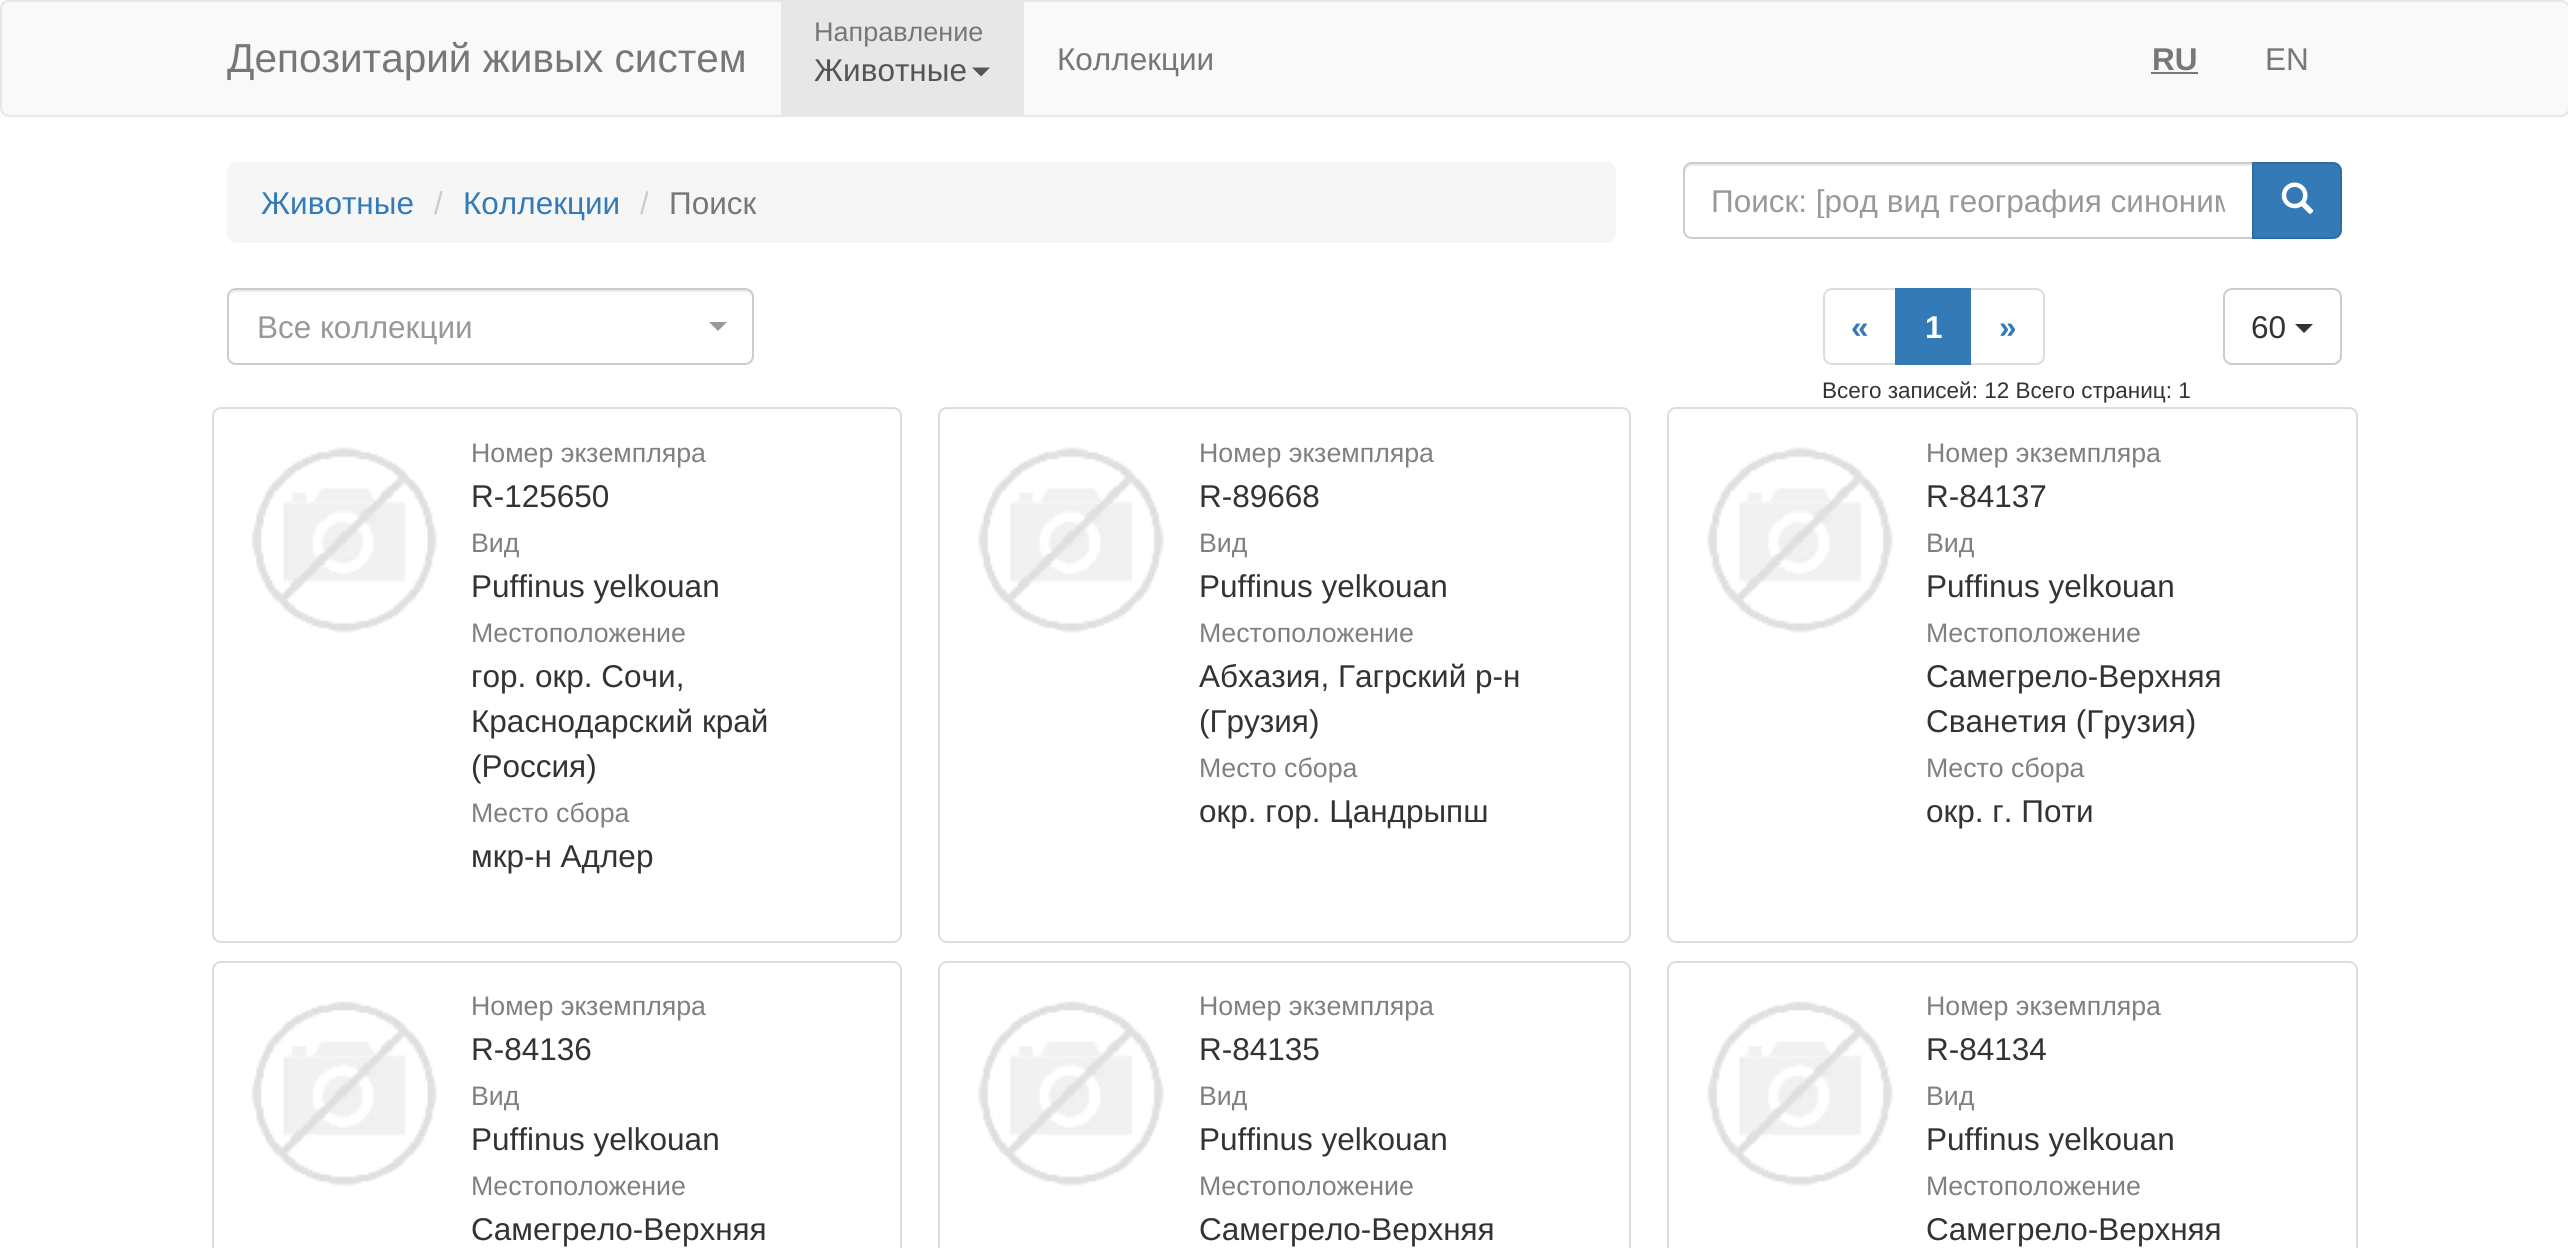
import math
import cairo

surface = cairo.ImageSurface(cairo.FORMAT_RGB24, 2568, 1248)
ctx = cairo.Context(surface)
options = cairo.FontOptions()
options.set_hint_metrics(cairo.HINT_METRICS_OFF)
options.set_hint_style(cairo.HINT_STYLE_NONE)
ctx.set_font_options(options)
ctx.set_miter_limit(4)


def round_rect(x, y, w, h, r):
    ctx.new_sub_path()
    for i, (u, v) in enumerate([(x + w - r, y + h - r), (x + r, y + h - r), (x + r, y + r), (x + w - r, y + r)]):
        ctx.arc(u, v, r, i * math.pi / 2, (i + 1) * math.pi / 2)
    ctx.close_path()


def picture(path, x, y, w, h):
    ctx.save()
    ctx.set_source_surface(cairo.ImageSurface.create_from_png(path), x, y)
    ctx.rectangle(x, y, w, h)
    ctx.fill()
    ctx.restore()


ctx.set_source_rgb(1, 1, 1)
ctx.paint()
ctx.set_source_rgb(0.973, 0.973, 0.973)
round_rect(1, 1, 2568, 115, 8)
ctx.fill_preserve()
ctx.set_source_rgb(0.906, 0.906, 0.906)
ctx.stroke()
ctx.select_font_face("Liberation Sans")
ctx.set_font_size(40.5)
ctx.set_source_rgb(0.467, 0.467, 0.467)
ctx.move_to(227, 72)
ctx.show_text("Депозитарий живых систем")
ctx.set_source_rgb(0.906, 0.906, 0.906)
ctx.rectangle(781, 2, 243, 113)
ctx.fill()
ctx.set_font_size(27)
ctx.set_source_rgb(0.467, 0.467, 0.467)
ctx.move_to(814, 41)
ctx.show_text("Направление")
ctx.set_font_size(31.5)
ctx.set_source_rgb(0.333, 0.333, 0.333)
ctx.move_to(814, 81)
ctx.show_text("Животные")
ctx.new_path()
ctx.move_to(972, 67.5)
ctx.line_to(990, 67.5)
ctx.line_to(981, 76.5)
ctx.close_path()
ctx.fill()
ctx.set_source_rgb(0.467, 0.467, 0.467)
ctx.move_to(1057, 70)
ctx.show_text("Коллекции")
ctx.select_font_face("Liberation Sans", cairo.FONT_SLANT_NORMAL, cairo.FONT_WEIGHT_BOLD)
ctx.move_to(2152, 70)
ctx.show_text("RU")
ctx.rectangle(2151, 72, 47, 2)
ctx.fill()
ctx.select_font_face("Liberation Sans")
ctx.move_to(2265, 70)
ctx.show_text("EN")
ctx.set_source_rgb(0.961, 0.961, 0.961)
round_rect(227, 162, 1389, 81, 9)
ctx.fill()
ctx.set_source_rgb(0.2, 0.478, 0.718)
ctx.move_to(261, 214)
ctx.show_text("Животные")
ctx.set_source_rgb(0.8, 0.8, 0.8)
ctx.move_to(434, 214)
ctx.show_text("/")
ctx.set_source_rgb(0.2, 0.478, 0.718)
ctx.move_to(463, 214)
ctx.show_text("Коллекции")
ctx.set_source_rgb(0.8, 0.8, 0.8)
ctx.move_to(640, 214)
ctx.show_text("/")
ctx.set_source_rgb(0.467, 0.467, 0.467)
ctx.move_to(669, 214)
ctx.show_text("Поиск")
ctx.set_source_rgb(0.925, 0.925, 0.925)
ctx.new_path()
ctx.move_to(1692, 166)
ctx.line_to(2252, 166)
ctx.line_to(2252, 164)
ctx.line_to(1692, 164)
ctx.curve_to(1688, 164, 1685, 167, 1685, 171)
ctx.line_to(1685, 173)
ctx.curve_to(1685, 170, 1688, 166, 1692, 166)
ctx.close_path()
ctx.fill()
ctx.new_path()
ctx.move_to(1692, 163)
ctx.line_to(2254, 163)
ctx.line_to(2254, 238)
ctx.line_to(1692, 238)
ctx.curve_to(1687.5, 238, 1684, 234.5, 1684, 230)
ctx.line_to(1684, 171)
ctx.curve_to(1684, 166.5, 1687.5, 163, 1692, 163)
ctx.close_path()
ctx.set_source_rgb(0.8, 0.8, 0.8)
ctx.stroke()
ctx.save()
ctx.rectangle(1712, 182, 513, 36)
ctx.clip()
ctx.set_source_rgb(0.6, 0.6, 0.6)
ctx.move_to(1711, 212)
ctx.show_text("Поиск: [род вид география синоним")
ctx.restore()
ctx.set_source_rgb(0.2, 0.478, 0.718)
ctx.new_path()
ctx.move_to(2253, 163)
ctx.line_to(2333, 163)
ctx.curve_to(2337.5, 163, 2341, 166.5, 2341, 171)
ctx.line_to(2341, 230)
ctx.curve_to(2341, 234.5, 2337.5, 238, 2333, 238)
ctx.line_to(2253, 238)
ctx.close_path()
ctx.fill_preserve()
ctx.set_source_rgb(0.18, 0.427, 0.643)
ctx.stroke()
picture("img1.png", 2281, 182, 33, 32)
ctx.set_source_rgb(0.925, 0.925, 0.925)
ctx.new_path()
ctx.move_to(236, 292)
ctx.line_to(745, 292)
ctx.curve_to(748, 292, 752, 296, 752, 299)
ctx.curve_to(752, 295, 750, 290, 745, 290)
ctx.line_to(237, 290)
ctx.curve_to(232, 290, 230, 295, 230, 299)
ctx.curve_to(230, 296, 233, 292, 236, 292)
ctx.close_path()
ctx.fill()
round_rect(228, 289, 525, 75, 8)
ctx.set_source_rgb(0.8, 0.8, 0.8)
ctx.stroke()
ctx.set_source_rgb(0.6, 0.6, 0.6)
ctx.move_to(257, 338)
ctx.show_text("Все коллекции")
ctx.new_path()
ctx.move_to(709, 322)
ctx.line_to(727, 322)
ctx.line_to(718, 331)
ctx.close_path()
ctx.fill()
ctx.new_path()
ctx.move_to(1832, 289)
ctx.line_to(1896, 289)
ctx.line_to(1896, 364)
ctx.line_to(1832, 364)
ctx.curve_to(1827.5, 364, 1824, 360.5, 1824, 356)
ctx.line_to(1824, 297)
ctx.curve_to(1824, 292.5, 1827.5, 289, 1832, 289)
ctx.close_path()
ctx.set_source_rgb(0.867, 0.867, 0.867)
ctx.stroke()
ctx.select_font_face("Liberation Sans", cairo.FONT_SLANT_NORMAL, cairo.FONT_WEIGHT_BOLD)
ctx.set_source_rgb(0.2, 0.478, 0.718)
ctx.move_to(1851, 338)
ctx.show_text("«")
ctx.new_path()
ctx.move_to(1970, 289)
ctx.line_to(2036, 289)
ctx.curve_to(2040.5, 289, 2044, 292.5, 2044, 297)
ctx.line_to(2044, 356)
ctx.curve_to(2044, 360.5, 2040.5, 364, 2036, 364)
ctx.line_to(1970, 364)
ctx.close_path()
ctx.set_source_rgb(0.867, 0.867, 0.867)
ctx.stroke()
ctx.set_source_rgb(0.2, 0.478, 0.718)
ctx.rectangle(1895, 288, 76, 77)
ctx.fill()
ctx.set_source_rgb(1, 1, 1)
ctx.move_to(1925, 338)
ctx.show_text("1")
ctx.set_source_rgb(0.2, 0.478, 0.718)
ctx.move_to(1999, 338)
ctx.show_text("»")
ctx.select_font_face("Liberation Sans")
ctx.set_font_size(22.5)
ctx.set_source_rgb(0.2, 0.2, 0.2)
ctx.move_to(1822, 398)
ctx.show_text("Всего записей: 12 Всего страниц: 1")
round_rect(2224, 289, 117, 75, 8)
ctx.set_source_rgb(0.8, 0.8, 0.8)
ctx.stroke()
ctx.set_font_size(31.5)
ctx.set_source_rgb(0.2, 0.2, 0.2)
ctx.move_to(2251, 338)
ctx.show_text("60")
ctx.new_path()
ctx.move_to(2295, 324)
ctx.line_to(2313, 324)
ctx.line_to(2304, 333)
ctx.close_path()
ctx.fill()
round_rect(213, 408, 688, 534, 8)
ctx.set_source_rgb(0.867, 0.867, 0.867)
ctx.stroke()
picture("img2.png", 251, 447, 186, 186)
ctx.set_font_size(26.75)
ctx.set_source_rgb(0.502, 0.502, 0.502)
ctx.move_to(471, 462)
ctx.show_text("Номер экземпляра")
ctx.set_font_size(31.5)
ctx.set_source_rgb(0.2, 0.2, 0.2)
ctx.move_to(471, 507)
ctx.show_text("R-125650")
ctx.set_font_size(26.75)
ctx.set_source_rgb(0.502, 0.502, 0.502)
ctx.move_to(471, 552)
ctx.show_text("Вид")
ctx.set_font_size(31.5)
ctx.set_source_rgb(0.2, 0.2, 0.2)
ctx.move_to(471, 597)
ctx.show_text("Puffinus yelkouan")
ctx.set_font_size(26.75)
ctx.set_source_rgb(0.502, 0.502, 0.502)
ctx.move_to(471, 642)
ctx.show_text("Местоположение")
ctx.set_font_size(31.5)
ctx.set_source_rgb(0.2, 0.2, 0.2)
ctx.move_to(471, 687)
ctx.show_text("гор. окр. Сочи,")
ctx.move_to(471, 732)
ctx.show_text("Краснодарский край")
ctx.move_to(471, 777)
ctx.show_text("(Россия)")
ctx.set_font_size(26.75)
ctx.set_source_rgb(0.502, 0.502, 0.502)
ctx.move_to(471, 822)
ctx.show_text("Место сбора")
ctx.set_font_size(31.5)
ctx.set_source_rgb(0.2, 0.2, 0.2)
ctx.move_to(471, 867)
ctx.show_text("мкр-н Адлер")
round_rect(939, 408, 691, 534, 8)
ctx.set_source_rgb(0.867, 0.867, 0.867)
ctx.stroke()
picture("img3.png", 978, 447, 186, 186)
ctx.set_font_size(26.75)
ctx.set_source_rgb(0.502, 0.502, 0.502)
ctx.move_to(1199, 462)
ctx.show_text("Номер экземпляра")
ctx.set_font_size(31.5)
ctx.set_source_rgb(0.2, 0.2, 0.2)
ctx.move_to(1199, 507)
ctx.show_text("R-89668")
ctx.set_font_size(26.75)
ctx.set_source_rgb(0.502, 0.502, 0.502)
ctx.move_to(1199, 552)
ctx.show_text("Вид")
ctx.set_font_size(31.5)
ctx.set_source_rgb(0.2, 0.2, 0.2)
ctx.move_to(1199, 597)
ctx.show_text("Puffinus yelkouan")
ctx.set_font_size(26.75)
ctx.set_source_rgb(0.502, 0.502, 0.502)
ctx.move_to(1199, 642)
ctx.show_text("Местоположение")
ctx.set_font_size(31.5)
ctx.set_source_rgb(0.2, 0.2, 0.2)
ctx.move_to(1199, 687)
ctx.show_text("Абхазия, Гагрский р-н")
ctx.move_to(1199, 732)
ctx.show_text("(Грузия)")
ctx.set_font_size(26.75)
ctx.set_source_rgb(0.502, 0.502, 0.502)
ctx.move_to(1199, 777)
ctx.show_text("Место сбора")
ctx.set_font_size(31.5)
ctx.set_source_rgb(0.2, 0.2, 0.2)
ctx.move_to(1199, 822)
ctx.show_text("окр. гор. Цандрыпш")
round_rect(1668, 408, 689, 534, 8)
ctx.set_source_rgb(0.867, 0.867, 0.867)
ctx.stroke()
picture("img4.png", 1707, 447, 186, 186)
ctx.set_font_size(26.75)
ctx.set_source_rgb(0.502, 0.502, 0.502)
ctx.move_to(1926, 462)
ctx.show_text("Номер экземпляра")
ctx.set_font_size(31.5)
ctx.set_source_rgb(0.2, 0.2, 0.2)
ctx.move_to(1926, 507)
ctx.show_text("R-84137")
ctx.set_font_size(26.75)
ctx.set_source_rgb(0.502, 0.502, 0.502)
ctx.move_to(1926, 552)
ctx.show_text("Вид")
ctx.set_font_size(31.5)
ctx.set_source_rgb(0.2, 0.2, 0.2)
ctx.move_to(1926, 597)
ctx.show_text("Puffinus yelkouan")
ctx.set_font_size(26.75)
ctx.set_source_rgb(0.502, 0.502, 0.502)
ctx.move_to(1926, 642)
ctx.show_text("Местоположение")
ctx.set_font_size(31.5)
ctx.set_source_rgb(0.2, 0.2, 0.2)
ctx.move_to(1926, 687)
ctx.show_text("Самегрело-Верхняя")
ctx.move_to(1926, 732)
ctx.show_text("Сванетия (Грузия)")
ctx.set_font_size(26.75)
ctx.set_source_rgb(0.502, 0.502, 0.502)
ctx.move_to(1926, 777)
ctx.show_text("Место сбора")
ctx.set_font_size(31.5)
ctx.set_source_rgb(0.2, 0.2, 0.2)
ctx.move_to(1926, 822)
ctx.show_text("окр. г. Поти")
round_rect(213, 962, 688, 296, 8)
ctx.set_source_rgb(0.867, 0.867, 0.867)
ctx.stroke()
picture("img5.png", 251, 1001, 186, 185)
ctx.set_font_size(26.75)
ctx.set_source_rgb(0.502, 0.502, 0.502)
ctx.move_to(471, 1015)
ctx.show_text("Номер экземпляра")
ctx.set_font_size(31.5)
ctx.set_source_rgb(0.2, 0.2, 0.2)
ctx.move_to(471, 1060)
ctx.show_text("R-84136")
ctx.set_font_size(26.75)
ctx.set_source_rgb(0.502, 0.502, 0.502)
ctx.move_to(471, 1105)
ctx.show_text("Вид")
ctx.set_font_size(31.5)
ctx.set_source_rgb(0.2, 0.2, 0.2)
ctx.move_to(471, 1150)
ctx.show_text("Puffinus yelkouan")
ctx.set_font_size(26.75)
ctx.set_source_rgb(0.502, 0.502, 0.502)
ctx.move_to(471, 1195)
ctx.show_text("Местоположение")
ctx.set_font_size(31.5)
ctx.set_source_rgb(0.2, 0.2, 0.2)
ctx.move_to(471, 1240)
ctx.show_text("Самегрело-Верхняя")
round_rect(939, 962, 691, 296, 8)
ctx.set_source_rgb(0.867, 0.867, 0.867)
ctx.stroke()
picture("img6.png", 978, 1001, 186, 185)
ctx.set_font_size(26.75)
ctx.set_source_rgb(0.502, 0.502, 0.502)
ctx.move_to(1199, 1015)
ctx.show_text("Номер экземпляра")
ctx.set_font_size(31.5)
ctx.set_source_rgb(0.2, 0.2, 0.2)
ctx.move_to(1199, 1060)
ctx.show_text("R-84135")
ctx.set_font_size(26.75)
ctx.set_source_rgb(0.502, 0.502, 0.502)
ctx.move_to(1199, 1105)
ctx.show_text("Вид")
ctx.set_font_size(31.5)
ctx.set_source_rgb(0.2, 0.2, 0.2)
ctx.move_to(1199, 1150)
ctx.show_text("Puffinus yelkouan")
ctx.set_font_size(26.75)
ctx.set_source_rgb(0.502, 0.502, 0.502)
ctx.move_to(1199, 1195)
ctx.show_text("Местоположение")
ctx.set_font_size(31.5)
ctx.set_source_rgb(0.2, 0.2, 0.2)
ctx.move_to(1199, 1240)
ctx.show_text("Самегрело-Верхняя")
round_rect(1668, 962, 689, 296, 8)
ctx.set_source_rgb(0.867, 0.867, 0.867)
ctx.stroke()
picture("img7.png", 1707, 1001, 186, 185)
ctx.set_font_size(26.75)
ctx.set_source_rgb(0.502, 0.502, 0.502)
ctx.move_to(1926, 1015)
ctx.show_text("Номер экземпляра")
ctx.set_font_size(31.5)
ctx.set_source_rgb(0.2, 0.2, 0.2)
ctx.move_to(1926, 1060)
ctx.show_text("R-84134")
ctx.set_font_size(26.75)
ctx.set_source_rgb(0.502, 0.502, 0.502)
ctx.move_to(1926, 1105)
ctx.show_text("Вид")
ctx.set_font_size(31.5)
ctx.set_source_rgb(0.2, 0.2, 0.2)
ctx.move_to(1926, 1150)
ctx.show_text("Puffinus yelkouan")
ctx.set_font_size(26.75)
ctx.set_source_rgb(0.502, 0.502, 0.502)
ctx.move_to(1926, 1195)
ctx.show_text("Местоположение")
ctx.set_font_size(31.5)
ctx.set_source_rgb(0.2, 0.2, 0.2)
ctx.move_to(1926, 1240)
ctx.show_text("Самегрело-Верхняя")
surface.write_to_png("page.png")
